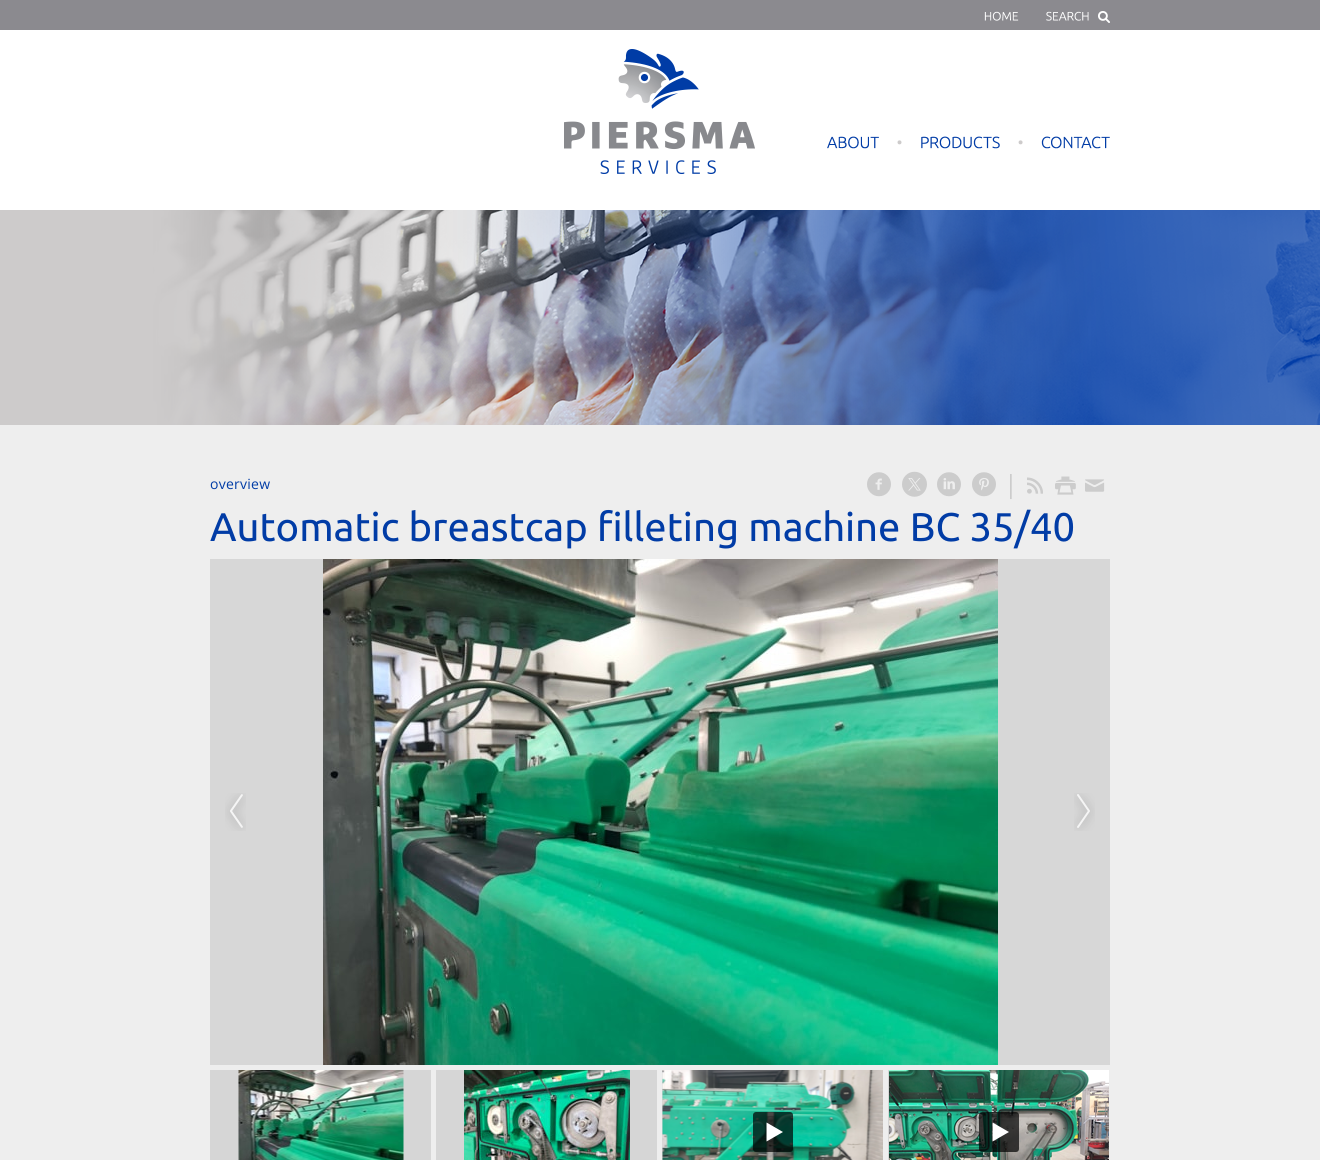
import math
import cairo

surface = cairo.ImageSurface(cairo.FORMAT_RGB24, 1320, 1160)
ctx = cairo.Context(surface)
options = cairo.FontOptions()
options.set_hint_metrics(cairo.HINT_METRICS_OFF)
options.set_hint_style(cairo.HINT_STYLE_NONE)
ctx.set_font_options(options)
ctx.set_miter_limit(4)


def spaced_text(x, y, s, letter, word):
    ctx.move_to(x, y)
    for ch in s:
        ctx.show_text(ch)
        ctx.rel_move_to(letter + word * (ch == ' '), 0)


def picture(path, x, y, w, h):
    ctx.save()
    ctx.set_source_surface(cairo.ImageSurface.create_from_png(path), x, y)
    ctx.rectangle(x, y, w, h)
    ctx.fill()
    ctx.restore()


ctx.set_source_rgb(1, 1, 1)
ctx.paint()
picture("img1.png", 0, 0, 1320, 1160)
picture("img2.png", 0, 210, 1320, 215)
picture("img3.png", 984, 11, 35, 10)
picture("img4.png", 1046, 11, 64, 12)
ctx.set_source_rgb(1, 1, 1)
ctx.rectangle(0, 30, 1320, 180)
ctx.fill()
picture("img5.png", 564, 49, 96, 125)
picture("img6.png", 660, 54, 95, 120)
picture("img7.png", 827, 136, 73, 13)
picture("img8.png", 900, 136, 100, 13)
picture("img9.png", 1018, 136, 92, 13)
ctx.select_font_face("Open Sans")
ctx.set_font_size(14)
ctx.set_source_rgb(0.004, 0.235, 0.651)
spaced_text(210, 489, "overview", 0.25, 0)
picture("img10.png", 867, 472, 24, 25)
picture("img11.png", 902, 471, 25, 26)
picture("img12.png", 937, 472, 24, 25)
picture("img13.png", 972, 472, 24, 25)
ctx.set_font_size(25)
ctx.set_source_rgb(0.8, 0.8, 0.8)
spaced_text(1004, 493, "|", 0.25, 0)
picture("img14.png", 1027, 477, 16, 17)
picture("img15.png", 1055, 476, 21, 19)
picture("img16.png", 1085, 479, 20, 13)
ctx.select_font_face("Ubuntu")
ctx.set_font_size(40)
ctx.set_source_rgb(0.004, 0.235, 0.651)
ctx.move_to(210, 541)
ctx.show_text("Automatic breastcap filleting machine BC 35/40")
ctx.set_source_rgb(0.843, 0.843, 0.843)
ctx.rectangle(210, 559, 900, 506)
ctx.fill()
picture("img17.png", 225, 793, 21, 38)
picture("img18.png", 323, 559, 675, 506)
picture("img19.png", 1074, 793, 21, 38)
ctx.set_source_rgb(0.839, 0.839, 0.839)
ctx.rectangle(210, 1070, 221, 90)
ctx.fill()
picture("img20.png", 238, 1070, 166, 90)
ctx.rectangle(436, 1070, 221, 90)
ctx.fill()
picture("img21.png", 464, 1070, 166, 90)
ctx.rectangle(662, 1070, 1, 90)
ctx.fill()
picture("img22.png", 662, 1070, 221, 90)
picture("img23.png", 753, 1112, 40, 40)
ctx.rectangle(888, 1070, 1, 90)
ctx.fill()
picture("img24.png", 889, 1070, 220, 90)
picture("img25.png", 979, 1112, 40, 40)
surface.write_to_png("page.png")
